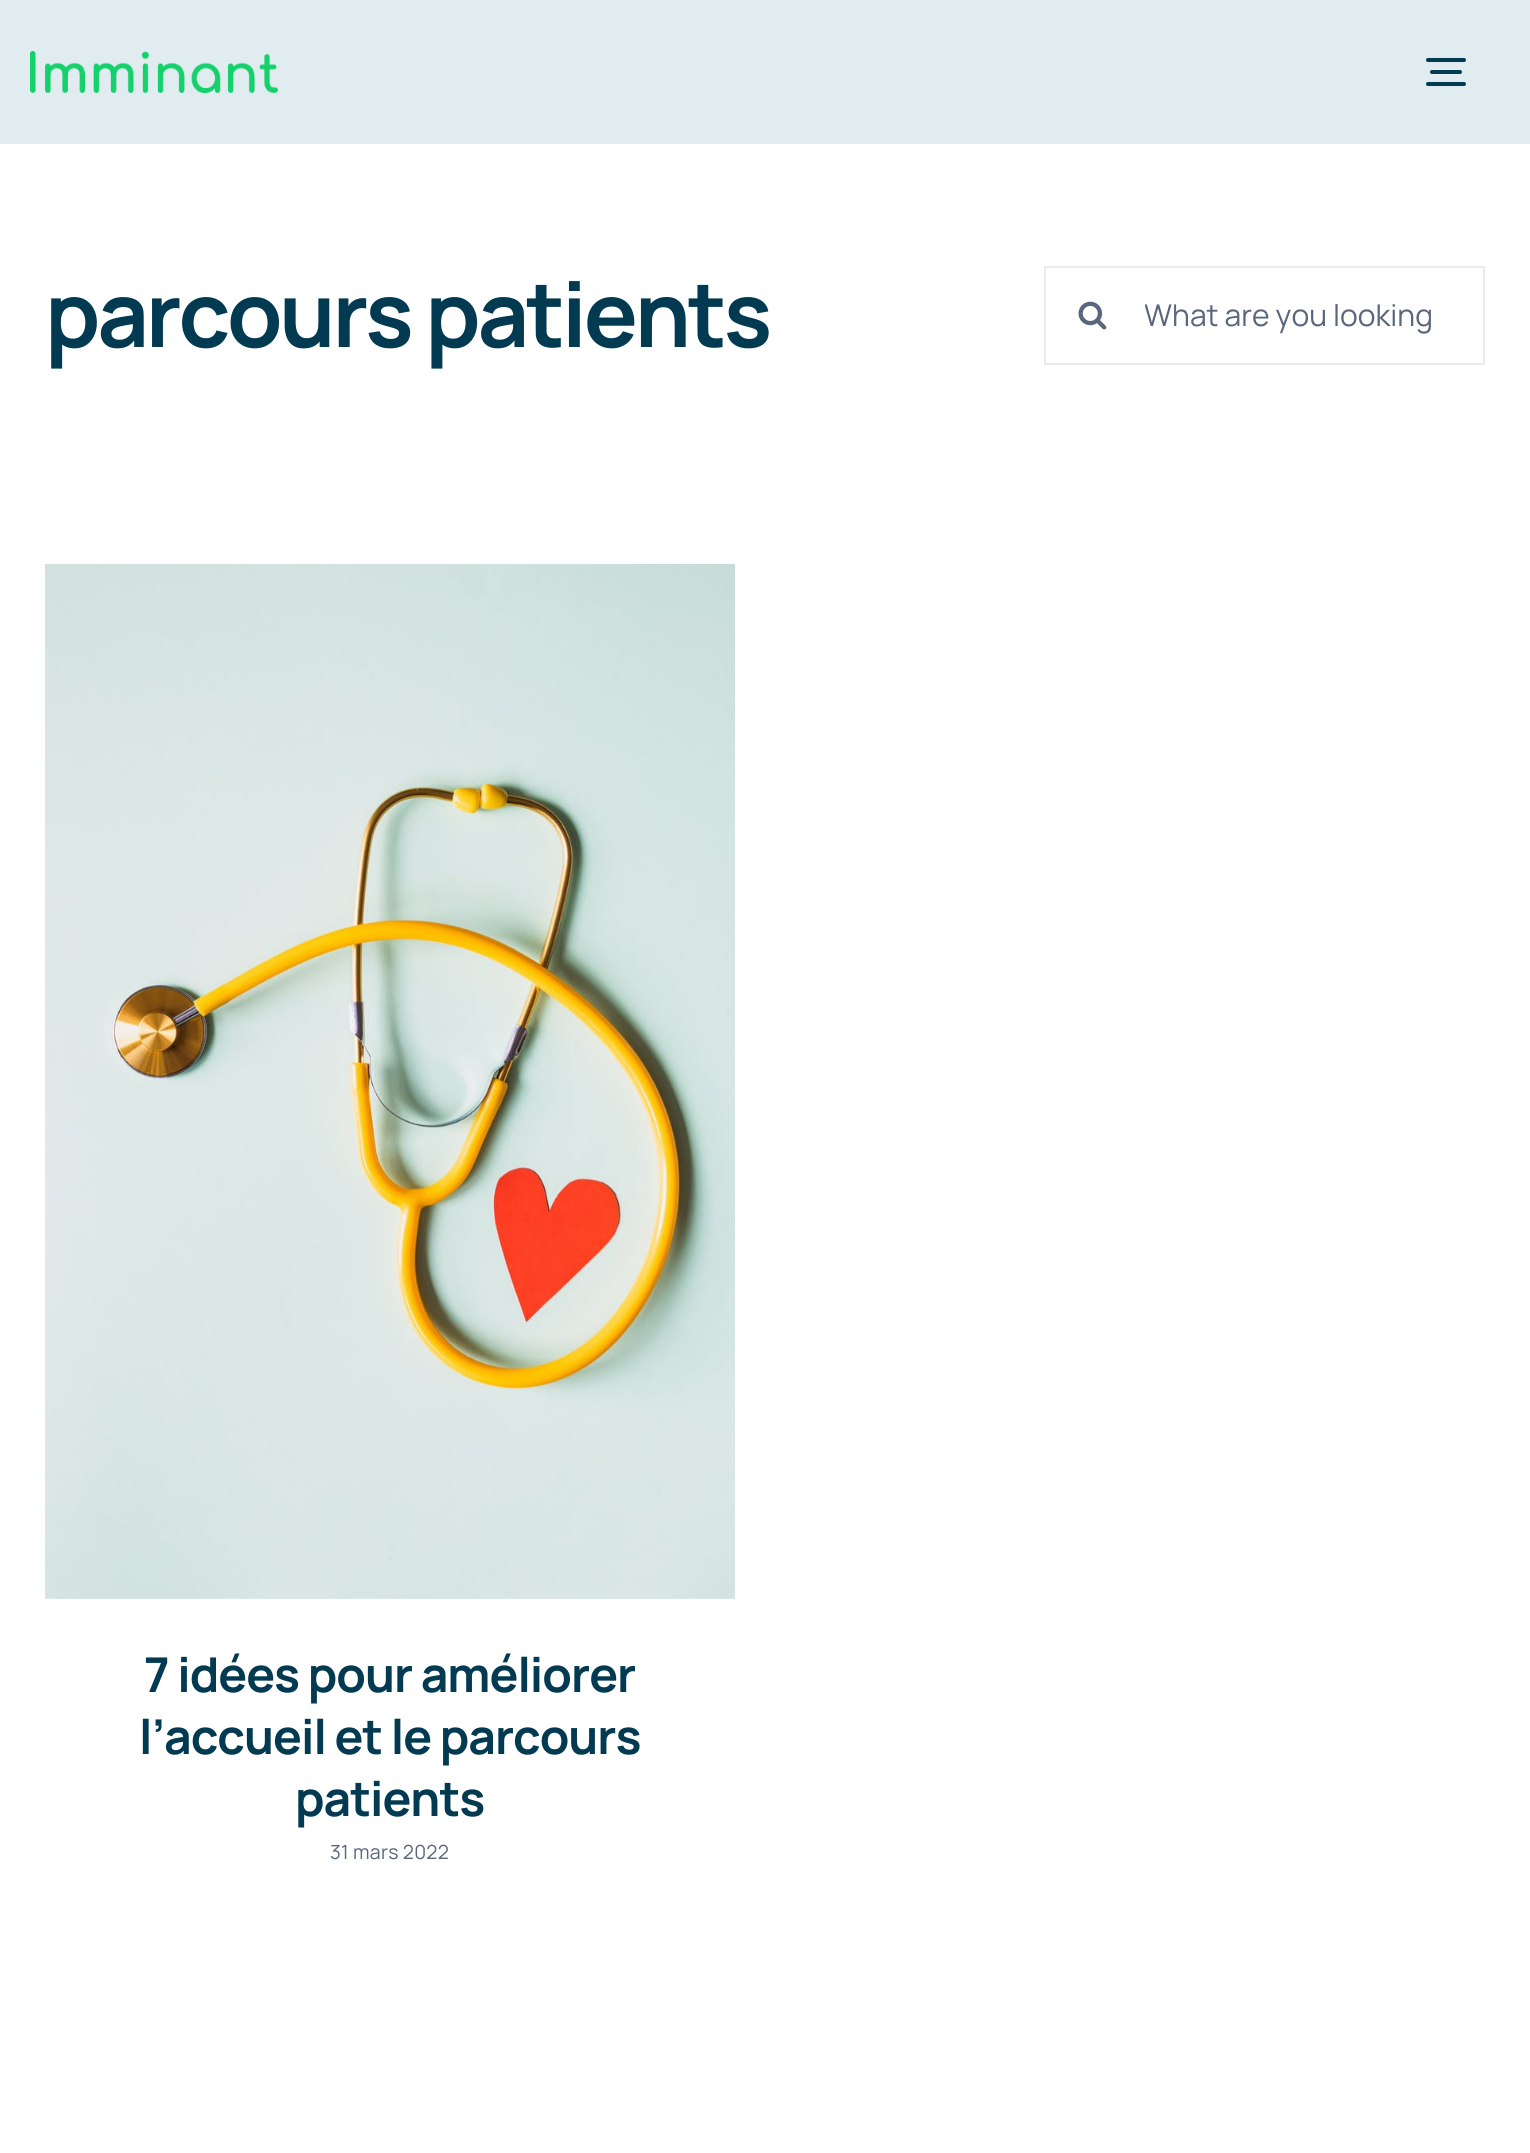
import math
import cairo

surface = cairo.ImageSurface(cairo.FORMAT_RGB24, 1530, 2153)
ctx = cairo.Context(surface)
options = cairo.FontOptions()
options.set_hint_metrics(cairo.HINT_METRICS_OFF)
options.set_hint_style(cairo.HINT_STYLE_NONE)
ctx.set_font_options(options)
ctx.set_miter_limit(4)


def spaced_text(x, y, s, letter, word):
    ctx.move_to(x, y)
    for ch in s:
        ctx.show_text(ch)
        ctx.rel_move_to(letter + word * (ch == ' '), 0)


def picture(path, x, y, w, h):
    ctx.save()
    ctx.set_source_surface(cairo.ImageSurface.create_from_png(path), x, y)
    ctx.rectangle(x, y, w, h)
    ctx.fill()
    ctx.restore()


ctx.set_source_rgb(1, 1, 1)
ctx.paint()
ctx.set_source_rgb(0.878, 0.925, 0.941)
ctx.rectangle(0, 0, 1530, 144)
ctx.fill()
picture("img1.png", 30, 51, 248, 42)
picture("img2.png", 1426, 58, 40, 28)
ctx.select_font_face("Manrope", cairo.FONT_SLANT_NORMAL, cairo.FONT_WEIGHT_BOLD)
ctx.set_font_size(90)
ctx.set_source_rgb(0.008, 0.227, 0.318)
spaced_text(45, 347, "parcours patients", -3.25, 0)
ctx.rectangle(1045, 267, 439, 97)
ctx.set_source_rgb(0.91, 0.922, 0.937)
ctx.stroke()
picture("img3.png", 1078, 301, 29, 29)
ctx.save()
ctx.rectangle(1145, 294, 289, 41)
ctx.clip()
ctx.select_font_face("Manrope")
ctx.set_font_size(30)
ctx.set_source_rgb(0.349, 0.4, 0.49)
ctx.move_to(1144, 326)
ctx.show_text("What are you looking")
ctx.restore()
picture("img4.png", 45, 564, 690, 1035)
ctx.set_font_size(48)
ctx.set_source_rgb(0.008, 0.227, 0.318)
spaced_text(144, 1692, "7 idées pour améliorer", -1, 0)
spaced_text(139, 1754, "l’accueil et le parcours", -1, 0)
spaced_text(295, 1816, "patients", -1, 0)
ctx.select_font_face("Manrope")
ctx.set_font_size(19.5)
ctx.set_source_rgb(0.349, 0.4, 0.49)
spaced_text(330, 1859, "31 mars 2022", 0.25, 0)
surface.write_to_png("page.png")
